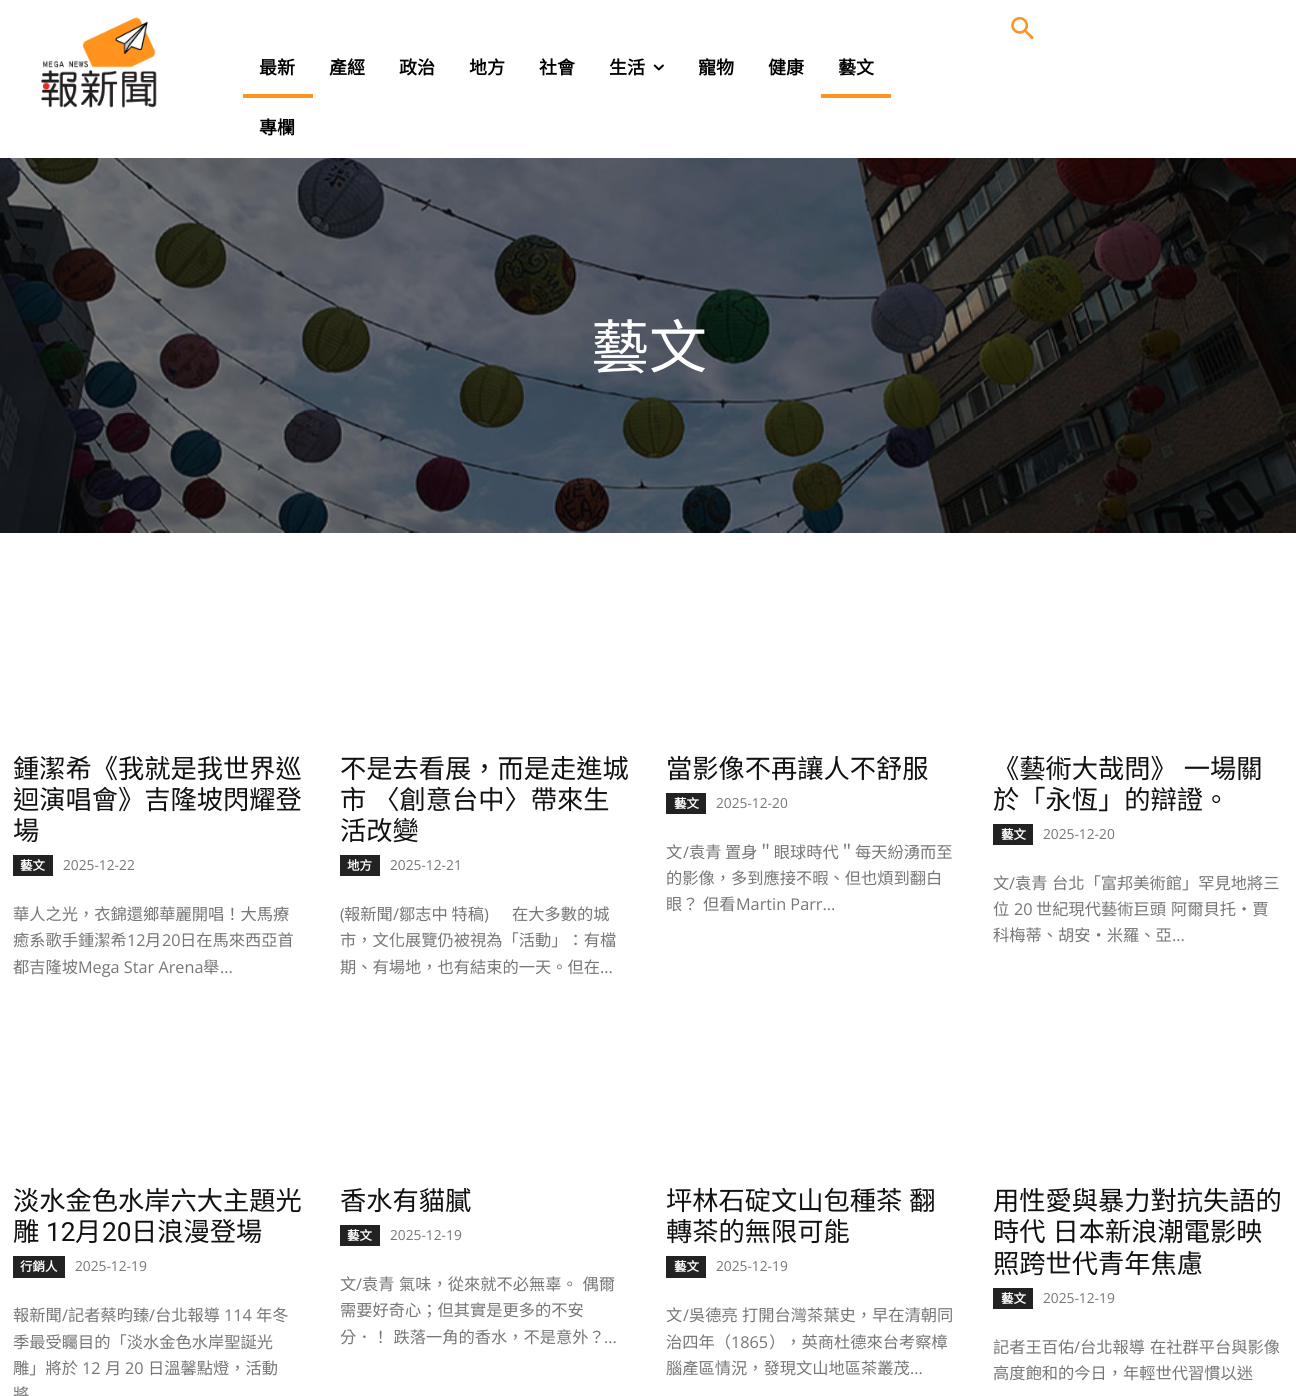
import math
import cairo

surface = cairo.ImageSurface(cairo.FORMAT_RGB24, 1296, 1396)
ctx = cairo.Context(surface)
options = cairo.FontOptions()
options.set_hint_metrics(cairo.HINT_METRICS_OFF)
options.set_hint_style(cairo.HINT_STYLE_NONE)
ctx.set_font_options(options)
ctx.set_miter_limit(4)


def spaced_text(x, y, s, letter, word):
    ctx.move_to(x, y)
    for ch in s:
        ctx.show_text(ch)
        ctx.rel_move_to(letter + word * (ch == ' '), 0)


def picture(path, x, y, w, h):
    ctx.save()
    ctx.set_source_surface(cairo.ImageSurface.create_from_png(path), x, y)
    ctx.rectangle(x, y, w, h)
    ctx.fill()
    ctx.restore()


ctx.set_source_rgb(1, 1, 1)
ctx.paint()
picture("img1.png", 41, 17, 116, 91)
ctx.select_font_face("Noto Sans CJK TC", cairo.FONT_SLANT_NORMAL, cairo.FONT_WEIGHT_BOLD)
ctx.set_font_size(18)
ctx.set_source_rgb(0, 0, 0)
ctx.move_to(259, 74)
ctx.show_text("最新")
ctx.set_source_rgb(0.996, 0.576, 0.118)
ctx.rectangle(243, 94, 70, 4)
ctx.fill()
ctx.set_source_rgb(0, 0, 0)
ctx.move_to(329, 74)
ctx.show_text("產經")
ctx.move_to(399, 74)
ctx.show_text("政治")
ctx.move_to(469, 74)
ctx.show_text("地方")
ctx.move_to(539, 74)
ctx.show_text("社會")
ctx.move_to(609, 74)
ctx.show_text("生活")
picture("img2.png", 653, 64, 11, 7)
ctx.move_to(698, 74)
ctx.show_text("寵物")
ctx.move_to(768, 74)
ctx.show_text("健康")
ctx.move_to(838, 74)
ctx.show_text("藝文")
ctx.set_source_rgb(0.996, 0.576, 0.118)
ctx.rectangle(821, 94, 70, 4)
ctx.fill()
ctx.set_source_rgb(0, 0, 0)
ctx.move_to(259, 134)
ctx.show_text("專欄")
picture("img3.png", 1011, 16, 23, 24)
picture("img4.png", 0, 158, 1296, 375)
ctx.select_font_face("Noto Sans CJK TC")
ctx.set_font_size(58)
ctx.set_source_rgb(1, 1, 1)
ctx.move_to(591, 368)
ctx.show_text("藝文")
ctx.set_font_size(26.25)
ctx.set_source_rgb(0.067, 0.067, 0.067)
ctx.move_to(13, 778)
ctx.show_text("鍾潔希《我就是我世界巡")
ctx.move_to(13, 809)
ctx.show_text("迴演唱會》吉隆坡閃耀登")
ctx.move_to(13, 840)
ctx.show_text("場")
ctx.set_source_rgb(0.133, 0.133, 0.133)
ctx.rectangle(13, 855, 40, 21)
ctx.fill()
ctx.select_font_face("Noto Sans CJK TC", cairo.FONT_SLANT_NORMAL, cairo.FONT_WEIGHT_BOLD)
ctx.set_font_size(12.5)
ctx.set_source_rgb(1, 1, 1)
ctx.move_to(20, 870)
ctx.show_text("藝文")
ctx.select_font_face("Open Sans")
ctx.set_font_size(13.75)
ctx.set_source_rgb(0.463, 0.463, 0.463)
ctx.move_to(63, 870)
ctx.show_text("2025-12-22")
ctx.select_font_face("Noto Sans CJK TC")
ctx.set_font_size(16.25)
ctx.move_to(13, 920)
ctx.show_text("華人之光，衣錦還鄉華麗開唱！大馬療")
ctx.move_to(13, 946)
ctx.show_text("癒系歌手鍾潔希")
ctx.select_font_face("Open Sans")
ctx.move_to(127, 946)
ctx.show_text("12")
ctx.select_font_face("Noto Sans CJK TC")
ctx.move_to(145, 946)
ctx.show_text("月")
ctx.select_font_face("Open Sans")
ctx.move_to(162, 946)
ctx.show_text("20")
ctx.select_font_face("Noto Sans CJK TC")
ctx.move_to(180, 946)
ctx.show_text("日在馬來西亞首")
ctx.move_to(13, 973)
ctx.show_text("都吉隆坡")
ctx.select_font_face("Open Sans")
ctx.move_to(78, 973)
ctx.show_text("Mega Star Arena")
ctx.select_font_face("Noto Sans CJK TC")
ctx.move_to(203, 973)
ctx.show_text("舉")
ctx.select_font_face("Open Sans")
ctx.move_to(220, 973)
ctx.show_text("...")
ctx.select_font_face("Noto Sans CJK TC")
ctx.set_font_size(26.25)
ctx.set_source_rgb(0.067, 0.067, 0.067)
ctx.move_to(340, 778)
ctx.show_text("不是去看展，而是走進城")
spaced_text(340, 809, "市 〈創意台中〉帶來生", 0, 1)
ctx.move_to(340, 840)
ctx.show_text("活改變")
ctx.set_source_rgb(0.133, 0.133, 0.133)
ctx.rectangle(340, 855, 40, 21)
ctx.fill()
ctx.select_font_face("Noto Sans CJK TC", cairo.FONT_SLANT_NORMAL, cairo.FONT_WEIGHT_BOLD)
ctx.set_font_size(12.5)
ctx.set_source_rgb(1, 1, 1)
ctx.move_to(347, 870)
ctx.show_text("地方")
ctx.select_font_face("Open Sans")
ctx.set_font_size(13.75)
ctx.set_source_rgb(0.463, 0.463, 0.463)
ctx.move_to(390, 870)
ctx.show_text("2025-12-21")
ctx.set_font_size(16.25)
ctx.move_to(340, 920)
ctx.show_text("(")
ctx.select_font_face("Noto Sans CJK TC")
ctx.move_to(344, 920)
ctx.show_text("報新聞")
ctx.select_font_face("Open Sans")
ctx.move_to(393, 920)
ctx.show_text("/")
ctx.select_font_face("Noto Sans CJK TC")
ctx.move_to(399, 920)
ctx.show_text("鄒志中 特稿")
ctx.select_font_face("Open Sans")
ctx.move_to(484, 920)
ctx.show_text(")")
ctx.select_font_face("Noto Sans CJK TC")
ctx.move_to(512, 920)
ctx.show_text("在大多數的城")
ctx.move_to(340, 946)
ctx.show_text("市，文化展覽仍被視為「活動」：有檔")
ctx.move_to(340, 973)
ctx.show_text("期、有場地，也有結束的一天。但在")
ctx.select_font_face("Open Sans")
ctx.move_to(600, 973)
ctx.show_text("...")
ctx.select_font_face("Noto Sans CJK TC")
ctx.set_font_size(26.25)
ctx.set_source_rgb(0.067, 0.067, 0.067)
ctx.move_to(666, 778)
ctx.show_text("當影像不再讓人不舒服")
ctx.set_source_rgb(0.133, 0.133, 0.133)
ctx.rectangle(666, 793, 40, 21)
ctx.fill()
ctx.select_font_face("Noto Sans CJK TC", cairo.FONT_SLANT_NORMAL, cairo.FONT_WEIGHT_BOLD)
ctx.set_font_size(12.5)
ctx.set_source_rgb(1, 1, 1)
ctx.move_to(674, 808)
ctx.show_text("藝文")
ctx.select_font_face("Open Sans")
ctx.set_font_size(13.75)
ctx.set_source_rgb(0.463, 0.463, 0.463)
ctx.move_to(716, 808)
ctx.show_text("2025-12-20")
ctx.select_font_face("Noto Sans CJK TC")
ctx.set_font_size(16.25)
ctx.move_to(666, 858)
ctx.show_text("文")
ctx.select_font_face("Open Sans")
ctx.move_to(683, 858)
ctx.show_text("/")
ctx.select_font_face("Noto Sans CJK TC")
ctx.move_to(689, 858)
ctx.show_text("袁青")
ctx.move_to(725, 858)
ctx.show_text("置身＂眼球時代＂每天紛湧而至")
ctx.move_to(666, 884)
ctx.show_text("的影像，多到應接不暇、但也煩到翻白")
ctx.move_to(666, 910)
ctx.show_text("眼？")
ctx.move_to(703, 910)
ctx.show_text("但看")
ctx.select_font_face("Open Sans")
ctx.move_to(736, 910)
ctx.show_text("Martin Parr...")
ctx.select_font_face("Noto Sans CJK TC")
ctx.set_font_size(26.25)
ctx.set_source_rgb(0.067, 0.067, 0.067)
spaced_text(993, 778, "《藝術大哉問》 一場關", 0, 1)
ctx.move_to(993, 809)
ctx.show_text("於「永恆」的辯證。")
ctx.set_source_rgb(0.133, 0.133, 0.133)
ctx.rectangle(993, 824, 40, 21)
ctx.fill()
ctx.select_font_face("Noto Sans CJK TC", cairo.FONT_SLANT_NORMAL, cairo.FONT_WEIGHT_BOLD)
ctx.set_font_size(12.5)
ctx.set_source_rgb(1, 1, 1)
ctx.move_to(1001, 839)
ctx.show_text("藝文")
ctx.select_font_face("Open Sans")
ctx.set_font_size(13.75)
ctx.set_source_rgb(0.463, 0.463, 0.463)
ctx.move_to(1043, 839)
ctx.show_text("2025-12-20")
ctx.select_font_face("Noto Sans CJK TC")
ctx.set_font_size(16.25)
ctx.move_to(993, 889)
ctx.show_text("文")
ctx.select_font_face("Open Sans")
ctx.move_to(1009, 889)
ctx.show_text("/")
ctx.select_font_face("Noto Sans CJK TC")
ctx.move_to(1015, 889)
ctx.show_text("袁青")
ctx.move_to(1052, 889)
ctx.show_text("台北「富邦美術館」罕見地將三")
ctx.move_to(993, 915)
ctx.show_text("位")
ctx.select_font_face("Open Sans")
ctx.move_to(1014, 915)
ctx.show_text("20")
ctx.select_font_face("Noto Sans CJK TC")
ctx.move_to(1036, 915)
ctx.show_text("世紀現代藝術巨頭")
ctx.move_to(1171, 915)
ctx.show_text("阿爾貝托・賈")
ctx.move_to(993, 941)
ctx.show_text("科梅蒂、胡安・米羅、亞")
ctx.select_font_face("Open Sans")
ctx.move_to(1172, 941)
ctx.show_text("...")
ctx.select_font_face("Noto Sans CJK TC")
ctx.set_font_size(26.25)
ctx.set_source_rgb(0.067, 0.067, 0.067)
ctx.move_to(13, 1210)
ctx.show_text("淡水金色水岸六大主題光")
ctx.move_to(13, 1241)
ctx.show_text("雕")
ctx.select_font_face("Roboto")
ctx.move_to(46, 1241)
ctx.show_text("12")
ctx.select_font_face("Noto Sans CJK TC")
ctx.move_to(75, 1241)
ctx.show_text("月")
ctx.select_font_face("Roboto")
ctx.move_to(102, 1241)
ctx.show_text("20")
ctx.select_font_face("Noto Sans CJK TC")
ctx.move_to(131, 1241)
ctx.show_text("日浪漫登場")
ctx.set_source_rgb(0.133, 0.133, 0.133)
ctx.rectangle(13, 1256, 52, 22)
ctx.fill()
ctx.select_font_face("Noto Sans CJK TC", cairo.FONT_SLANT_NORMAL, cairo.FONT_WEIGHT_BOLD)
ctx.set_font_size(12.5)
ctx.set_source_rgb(1, 1, 1)
ctx.move_to(20, 1271)
ctx.show_text("行銷人")
ctx.select_font_face("Open Sans")
ctx.set_font_size(13.75)
ctx.set_source_rgb(0.463, 0.463, 0.463)
ctx.move_to(75, 1271)
ctx.show_text("2025-12-19")
ctx.select_font_face("Noto Sans CJK TC")
ctx.set_font_size(16.25)
ctx.move_to(13, 1321)
ctx.show_text("報新聞")
ctx.select_font_face("Open Sans")
ctx.move_to(62, 1321)
ctx.show_text("/")
ctx.select_font_face("Noto Sans CJK TC")
ctx.move_to(68, 1321)
ctx.show_text("記者蔡昀臻")
ctx.select_font_face("Open Sans")
ctx.move_to(149, 1321)
ctx.show_text("/")
ctx.select_font_face("Noto Sans CJK TC")
ctx.move_to(155, 1321)
ctx.show_text("台北報導")
ctx.select_font_face("Open Sans")
ctx.move_to(224, 1321)
ctx.show_text("114")
ctx.select_font_face("Noto Sans CJK TC")
ctx.move_to(256, 1321)
ctx.show_text("年冬")
ctx.move_to(13, 1348)
ctx.show_text("季最受矚目的「淡水金色水岸聖誕光")
ctx.move_to(13, 1374)
ctx.show_text("雕」將於")
ctx.select_font_face("Open Sans")
ctx.move_to(82, 1374)
ctx.show_text("12")
ctx.select_font_face("Noto Sans CJK TC")
ctx.move_to(105, 1374)
ctx.show_text("月")
ctx.select_font_face("Open Sans")
ctx.move_to(125, 1374)
ctx.show_text("20")
ctx.select_font_face("Noto Sans CJK TC")
ctx.move_to(148, 1374)
ctx.show_text("日溫馨點燈，活動")
ctx.move_to(13, 1400)
ctx.show_text("將")
ctx.set_font_size(26.25)
ctx.set_source_rgb(0.067, 0.067, 0.067)
ctx.move_to(340, 1210)
ctx.show_text("香水有貓膩")
ctx.set_source_rgb(0.133, 0.133, 0.133)
ctx.rectangle(340, 1225, 40, 21)
ctx.fill()
ctx.select_font_face("Noto Sans CJK TC", cairo.FONT_SLANT_NORMAL, cairo.FONT_WEIGHT_BOLD)
ctx.set_font_size(12.5)
ctx.set_source_rgb(1, 1, 1)
ctx.move_to(347, 1240)
ctx.show_text("藝文")
ctx.select_font_face("Open Sans")
ctx.set_font_size(13.75)
ctx.set_source_rgb(0.463, 0.463, 0.463)
ctx.move_to(390, 1240)
ctx.show_text("2025-12-19")
ctx.select_font_face("Noto Sans CJK TC")
ctx.set_font_size(16.25)
ctx.move_to(340, 1290)
ctx.show_text("文")
ctx.select_font_face("Open Sans")
ctx.move_to(356, 1290)
ctx.show_text("/")
ctx.select_font_face("Noto Sans CJK TC")
ctx.move_to(362, 1290)
ctx.show_text("袁青")
spaced_text(399, 1290, "氣味，從來就不必無辜。 偶爾", 0, 1)
ctx.move_to(340, 1316)
ctx.show_text("需要好奇心；但其實是更多的不安")
spaced_text(340, 1343, "分．！ 跌落一角的香水，不是意外？", 0, 1)
ctx.select_font_face("Open Sans")
ctx.move_to(604, 1343)
ctx.show_text("...")
ctx.select_font_face("Noto Sans CJK TC")
ctx.set_font_size(26.25)
ctx.set_source_rgb(0.067, 0.067, 0.067)
spaced_text(666, 1210, "坪林石碇文山包種茶 翻", 0, 1)
ctx.move_to(666, 1241)
ctx.show_text("轉茶的無限可能")
ctx.set_source_rgb(0.133, 0.133, 0.133)
ctx.rectangle(666, 1256, 40, 22)
ctx.fill()
ctx.select_font_face("Noto Sans CJK TC", cairo.FONT_SLANT_NORMAL, cairo.FONT_WEIGHT_BOLD)
ctx.set_font_size(12.5)
ctx.set_source_rgb(1, 1, 1)
ctx.move_to(674, 1271)
ctx.show_text("藝文")
ctx.select_font_face("Open Sans")
ctx.set_font_size(13.75)
ctx.set_source_rgb(0.463, 0.463, 0.463)
ctx.move_to(716, 1271)
ctx.show_text("2025-12-19")
ctx.select_font_face("Noto Sans CJK TC")
ctx.set_font_size(16.25)
ctx.move_to(666, 1321)
ctx.show_text("文")
ctx.select_font_face("Open Sans")
ctx.move_to(683, 1321)
ctx.show_text("/")
ctx.select_font_face("Noto Sans CJK TC")
ctx.move_to(689, 1321)
ctx.show_text("吳德亮")
ctx.move_to(742, 1321)
ctx.show_text("打開台灣茶葉史，早在清朝同")
ctx.move_to(666, 1348)
ctx.show_text("治四年（")
ctx.select_font_face("Open Sans")
ctx.move_to(731, 1348)
ctx.show_text("1865")
ctx.select_font_face("Noto Sans CJK TC")
ctx.move_to(769, 1348)
ctx.show_text("），英商杜德來台考察樟")
ctx.move_to(666, 1374)
ctx.show_text("腦產區情況，發現文山地區茶叢茂")
ctx.select_font_face("Open Sans")
ctx.move_to(910, 1374)
ctx.show_text("...")
ctx.select_font_face("Noto Sans CJK TC")
ctx.set_font_size(26.25)
ctx.set_source_rgb(0.067, 0.067, 0.067)
ctx.move_to(993, 1210)
ctx.show_text("用性愛與暴力對抗失語的")
spaced_text(993, 1241, "時代 日本新浪潮電影映", 0, 1)
ctx.move_to(993, 1273)
ctx.show_text("照跨世代青年焦慮")
ctx.set_source_rgb(0.133, 0.133, 0.133)
ctx.rectangle(993, 1288, 40, 21)
ctx.fill()
ctx.select_font_face("Noto Sans CJK TC", cairo.FONT_SLANT_NORMAL, cairo.FONT_WEIGHT_BOLD)
ctx.set_font_size(12.5)
ctx.set_source_rgb(1, 1, 1)
ctx.move_to(1001, 1303)
ctx.show_text("藝文")
ctx.select_font_face("Open Sans")
ctx.set_font_size(13.75)
ctx.set_source_rgb(0.463, 0.463, 0.463)
ctx.move_to(1043, 1303)
ctx.show_text("2025-12-19")
ctx.select_font_face("Noto Sans CJK TC")
ctx.set_font_size(16.25)
ctx.move_to(993, 1353)
ctx.show_text("記者王百佑")
ctx.select_font_face("Open Sans")
ctx.move_to(1074, 1353)
ctx.show_text("/")
ctx.select_font_face("Noto Sans CJK TC")
ctx.move_to(1080, 1353)
ctx.show_text("台北報導")
ctx.move_to(1150, 1353)
ctx.show_text("在社群平台與影像")
ctx.move_to(993, 1379)
ctx.show_text("高度飽和的今日，年輕世代習慣以迷")
surface.write_to_png("page.png")
